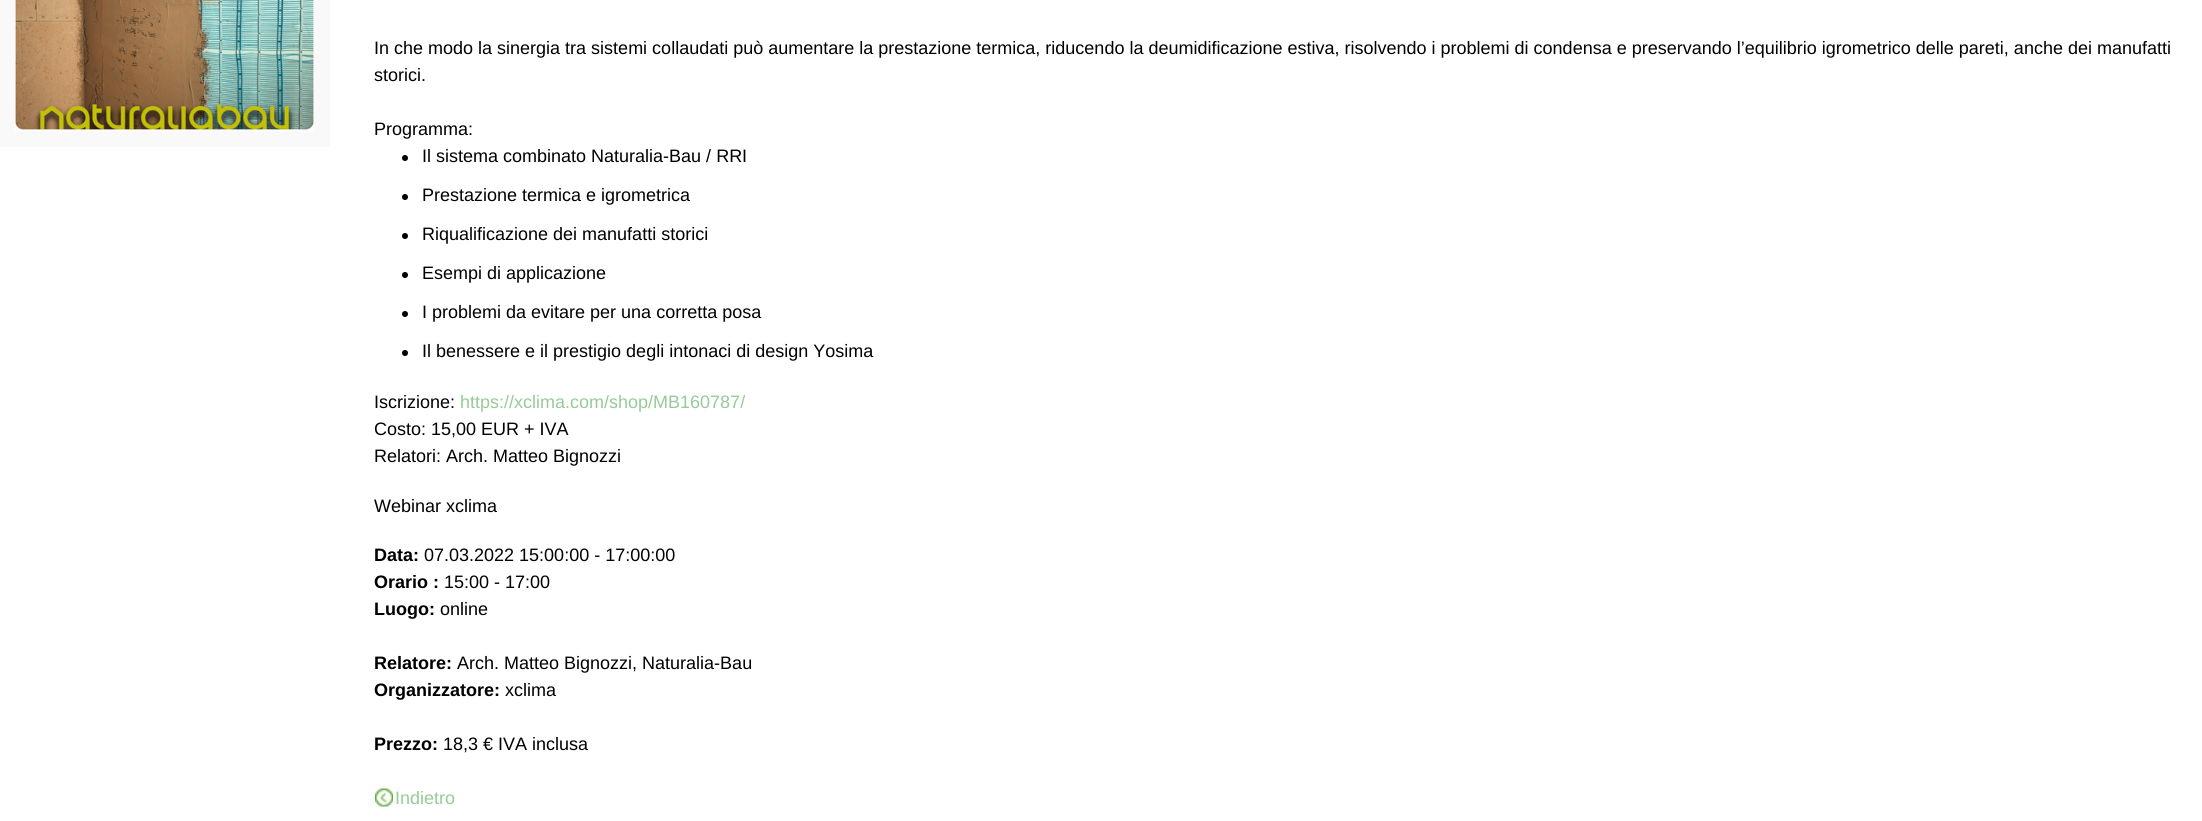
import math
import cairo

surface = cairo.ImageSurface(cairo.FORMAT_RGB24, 2202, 821)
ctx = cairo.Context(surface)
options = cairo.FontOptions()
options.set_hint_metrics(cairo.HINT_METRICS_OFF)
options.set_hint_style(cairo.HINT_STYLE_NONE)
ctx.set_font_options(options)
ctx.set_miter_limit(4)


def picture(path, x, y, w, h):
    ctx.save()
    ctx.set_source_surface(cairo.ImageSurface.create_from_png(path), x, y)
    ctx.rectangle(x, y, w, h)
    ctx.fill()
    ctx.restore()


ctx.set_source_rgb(1, 1, 1)
ctx.paint()
ctx.set_source_rgb(0.976, 0.976, 0.976)
ctx.rectangle(0, 0, 330, 147)
ctx.fill()
picture("img1.png", 15, 0, 300, 132)
ctx.select_font_face("Liberation Sans")
ctx.set_font_size(18)
ctx.set_source_rgb(0, 0, 0)
ctx.move_to(374, 54)
ctx.show_text("In che modo la sinergia tra sistemi collaudati può aumentare la prestazione termica, riducendo la deumidificazione estiva, risolvendo i problemi di condensa e preservando l’equilibrio igrometrico delle pareti, anche dei manufatti")
ctx.move_to(374, 81)
ctx.show_text("storici.")
ctx.move_to(374, 135)
ctx.show_text("Programma:")
ctx.new_path()
ctx.arc(405, 158, 3, 0, 2 * math.pi)
ctx.fill()
ctx.move_to(422, 162)
ctx.show_text("Il sistema combinato Naturalia-Bau / RRI")
ctx.new_path()
ctx.arc(405, 197, 3, 0, 2 * math.pi)
ctx.fill()
ctx.move_to(422, 201)
ctx.show_text("Prestazione termica e igrometrica")
ctx.new_path()
ctx.arc(405, 236, 3, 0, 2 * math.pi)
ctx.fill()
ctx.move_to(422, 240)
ctx.show_text("Riqualificazione dei manufatti storici")
ctx.new_path()
ctx.arc(405, 275, 3, 0, 2 * math.pi)
ctx.fill()
ctx.move_to(422, 279)
ctx.show_text("Esempi di applicazione")
ctx.new_path()
ctx.arc(405, 314, 3, 0, 2 * math.pi)
ctx.fill()
ctx.move_to(422, 318)
ctx.show_text("I problemi da evitare per una corretta posa")
ctx.new_path()
ctx.arc(405, 353, 3, 0, 2 * math.pi)
ctx.fill()
ctx.move_to(422, 357)
ctx.show_text("Il benessere e il prestigio degli intonaci di design Yosima")
ctx.move_to(374, 408)
ctx.show_text("Iscrizione:")
ctx.set_source_rgb(0.588, 0.796, 0.596)
ctx.move_to(460, 408)
ctx.show_text("https://xclima.com/shop/MB160787/")
ctx.set_source_rgb(0, 0, 0)
ctx.move_to(374, 435)
ctx.show_text("Costo: 15,00 EUR + IVA")
ctx.move_to(374, 462)
ctx.show_text("Relatori: Arch. Matteo Bignozzi")
ctx.move_to(374, 512)
ctx.show_text("Webinar xclima")
ctx.select_font_face("Liberation Sans", cairo.FONT_SLANT_NORMAL, cairo.FONT_WEIGHT_BOLD)
ctx.move_to(374, 561)
ctx.show_text("Data:")
ctx.select_font_face("Liberation Sans")
ctx.move_to(424, 561)
ctx.show_text("07.03.2022 15:00:00 - 17:00:00")
ctx.select_font_face("Liberation Sans", cairo.FONT_SLANT_NORMAL, cairo.FONT_WEIGHT_BOLD)
ctx.move_to(374, 588)
ctx.show_text("Orario :")
ctx.select_font_face("Liberation Sans")
ctx.move_to(444, 588)
ctx.show_text("15:00 - 17:00")
ctx.select_font_face("Liberation Sans", cairo.FONT_SLANT_NORMAL, cairo.FONT_WEIGHT_BOLD)
ctx.move_to(374, 615)
ctx.show_text("Luogo:")
ctx.select_font_face("Liberation Sans")
ctx.move_to(440, 615)
ctx.show_text("online")
ctx.select_font_face("Liberation Sans", cairo.FONT_SLANT_NORMAL, cairo.FONT_WEIGHT_BOLD)
ctx.move_to(374, 669)
ctx.show_text("Relatore:")
ctx.select_font_face("Liberation Sans")
ctx.move_to(457, 669)
ctx.show_text("Arch. Matteo Bignozzi, Naturalia-Bau")
ctx.select_font_face("Liberation Sans", cairo.FONT_SLANT_NORMAL, cairo.FONT_WEIGHT_BOLD)
ctx.move_to(374, 696)
ctx.show_text("Organizzatore:")
ctx.select_font_face("Liberation Sans")
ctx.move_to(505, 696)
ctx.show_text("xclima")
ctx.select_font_face("Liberation Sans", cairo.FONT_SLANT_NORMAL, cairo.FONT_WEIGHT_BOLD)
ctx.move_to(374, 750)
ctx.show_text("Prezzo:")
ctx.select_font_face("Liberation Sans")
ctx.move_to(443, 750)
ctx.show_text("18,3 € IVA inclusa")
picture("img2.png", 375, 788, 18, 19)
ctx.set_source_rgb(0.588, 0.796, 0.596)
ctx.move_to(395, 804)
ctx.show_text("Indietro")
surface.write_to_png("page.png")
